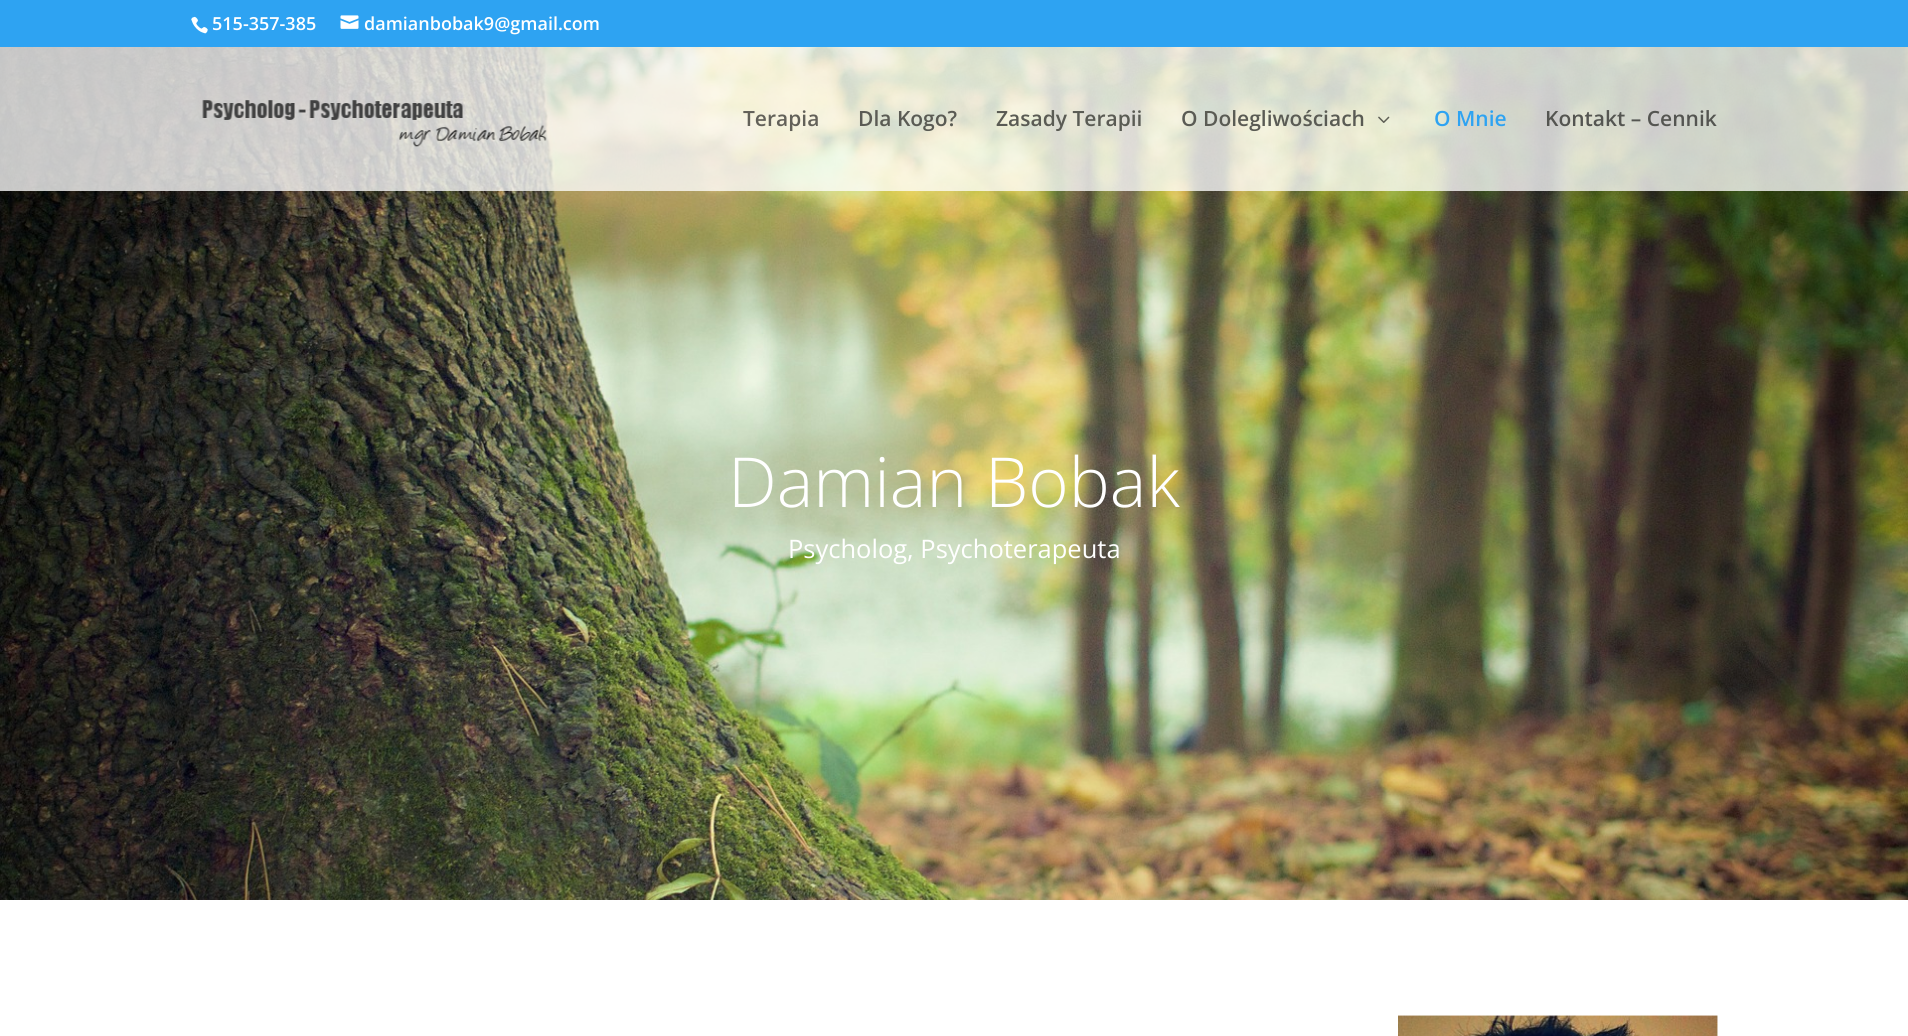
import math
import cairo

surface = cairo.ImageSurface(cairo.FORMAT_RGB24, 1908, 1036)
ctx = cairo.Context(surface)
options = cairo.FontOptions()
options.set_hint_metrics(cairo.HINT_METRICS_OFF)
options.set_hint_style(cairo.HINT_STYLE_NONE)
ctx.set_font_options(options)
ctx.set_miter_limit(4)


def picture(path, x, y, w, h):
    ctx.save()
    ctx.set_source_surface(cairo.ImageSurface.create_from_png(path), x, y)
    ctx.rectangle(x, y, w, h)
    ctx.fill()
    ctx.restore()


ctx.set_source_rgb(1, 1, 1)
ctx.paint()
ctx.set_source_rgb(0.18, 0.639, 0.949)
ctx.rectangle(0, 0, 1908, 47)
ctx.fill()
picture("img1.png", 191, 16, 17, 18)
ctx.select_font_face("Open Sans SemiBold")
ctx.set_font_size(18)
ctx.set_source_rgb(1, 1, 1)
ctx.move_to(212, 30)
ctx.show_text("515-357-385")
picture("img2.png", 340, 15, 19, 14)
ctx.move_to(364, 30)
ctx.show_text("damianbobak9@gmail.com")
picture("img5.png", 0, 47, 1908, 853)
ctx.set_source_rgba(1, 1, 1, 0.77)
ctx.rectangle(0, 47, 1908, 144)
ctx.fill()
picture("img3.png", 202, 100, 345, 47)
ctx.set_font_size(21)
ctx.set_source_rgb(0.388, 0.38, 0.349)
ctx.move_to(743, 126)
ctx.show_text("Terapia")
ctx.set_source_rgb(0.353, 0.357, 0.329)
ctx.move_to(858, 126)
ctx.show_text("Dla Kogo?")
ctx.move_to(996, 126)
ctx.show_text("Zasady Terapii")
ctx.move_to(1181, 126)
ctx.show_text("O Dolegliwościach")
picture("img4.png", 1378, 116, 12, 7)
ctx.set_source_rgb(0.18, 0.639, 0.949)
ctx.move_to(1434, 126)
ctx.show_text("O Mnie")
ctx.set_source_rgb(0.329, 0.333, 0.318)
ctx.move_to(1545, 126)
ctx.show_text("Kontakt – Cennik")
ctx.select_font_face("Open Sans Light")
ctx.set_font_size(69)
ctx.set_source_rgb(1, 1, 1)
ctx.move_to(728, 507)
ctx.show_text("Damian Bobak")
ctx.select_font_face("Open Sans")
ctx.set_font_size(25.5)
ctx.move_to(788, 558)
ctx.show_text("Psycholog, Psychoterapeuta")
picture("img6.png", 1398, 1015, 320, 21)
surface.write_to_png("page.png")
